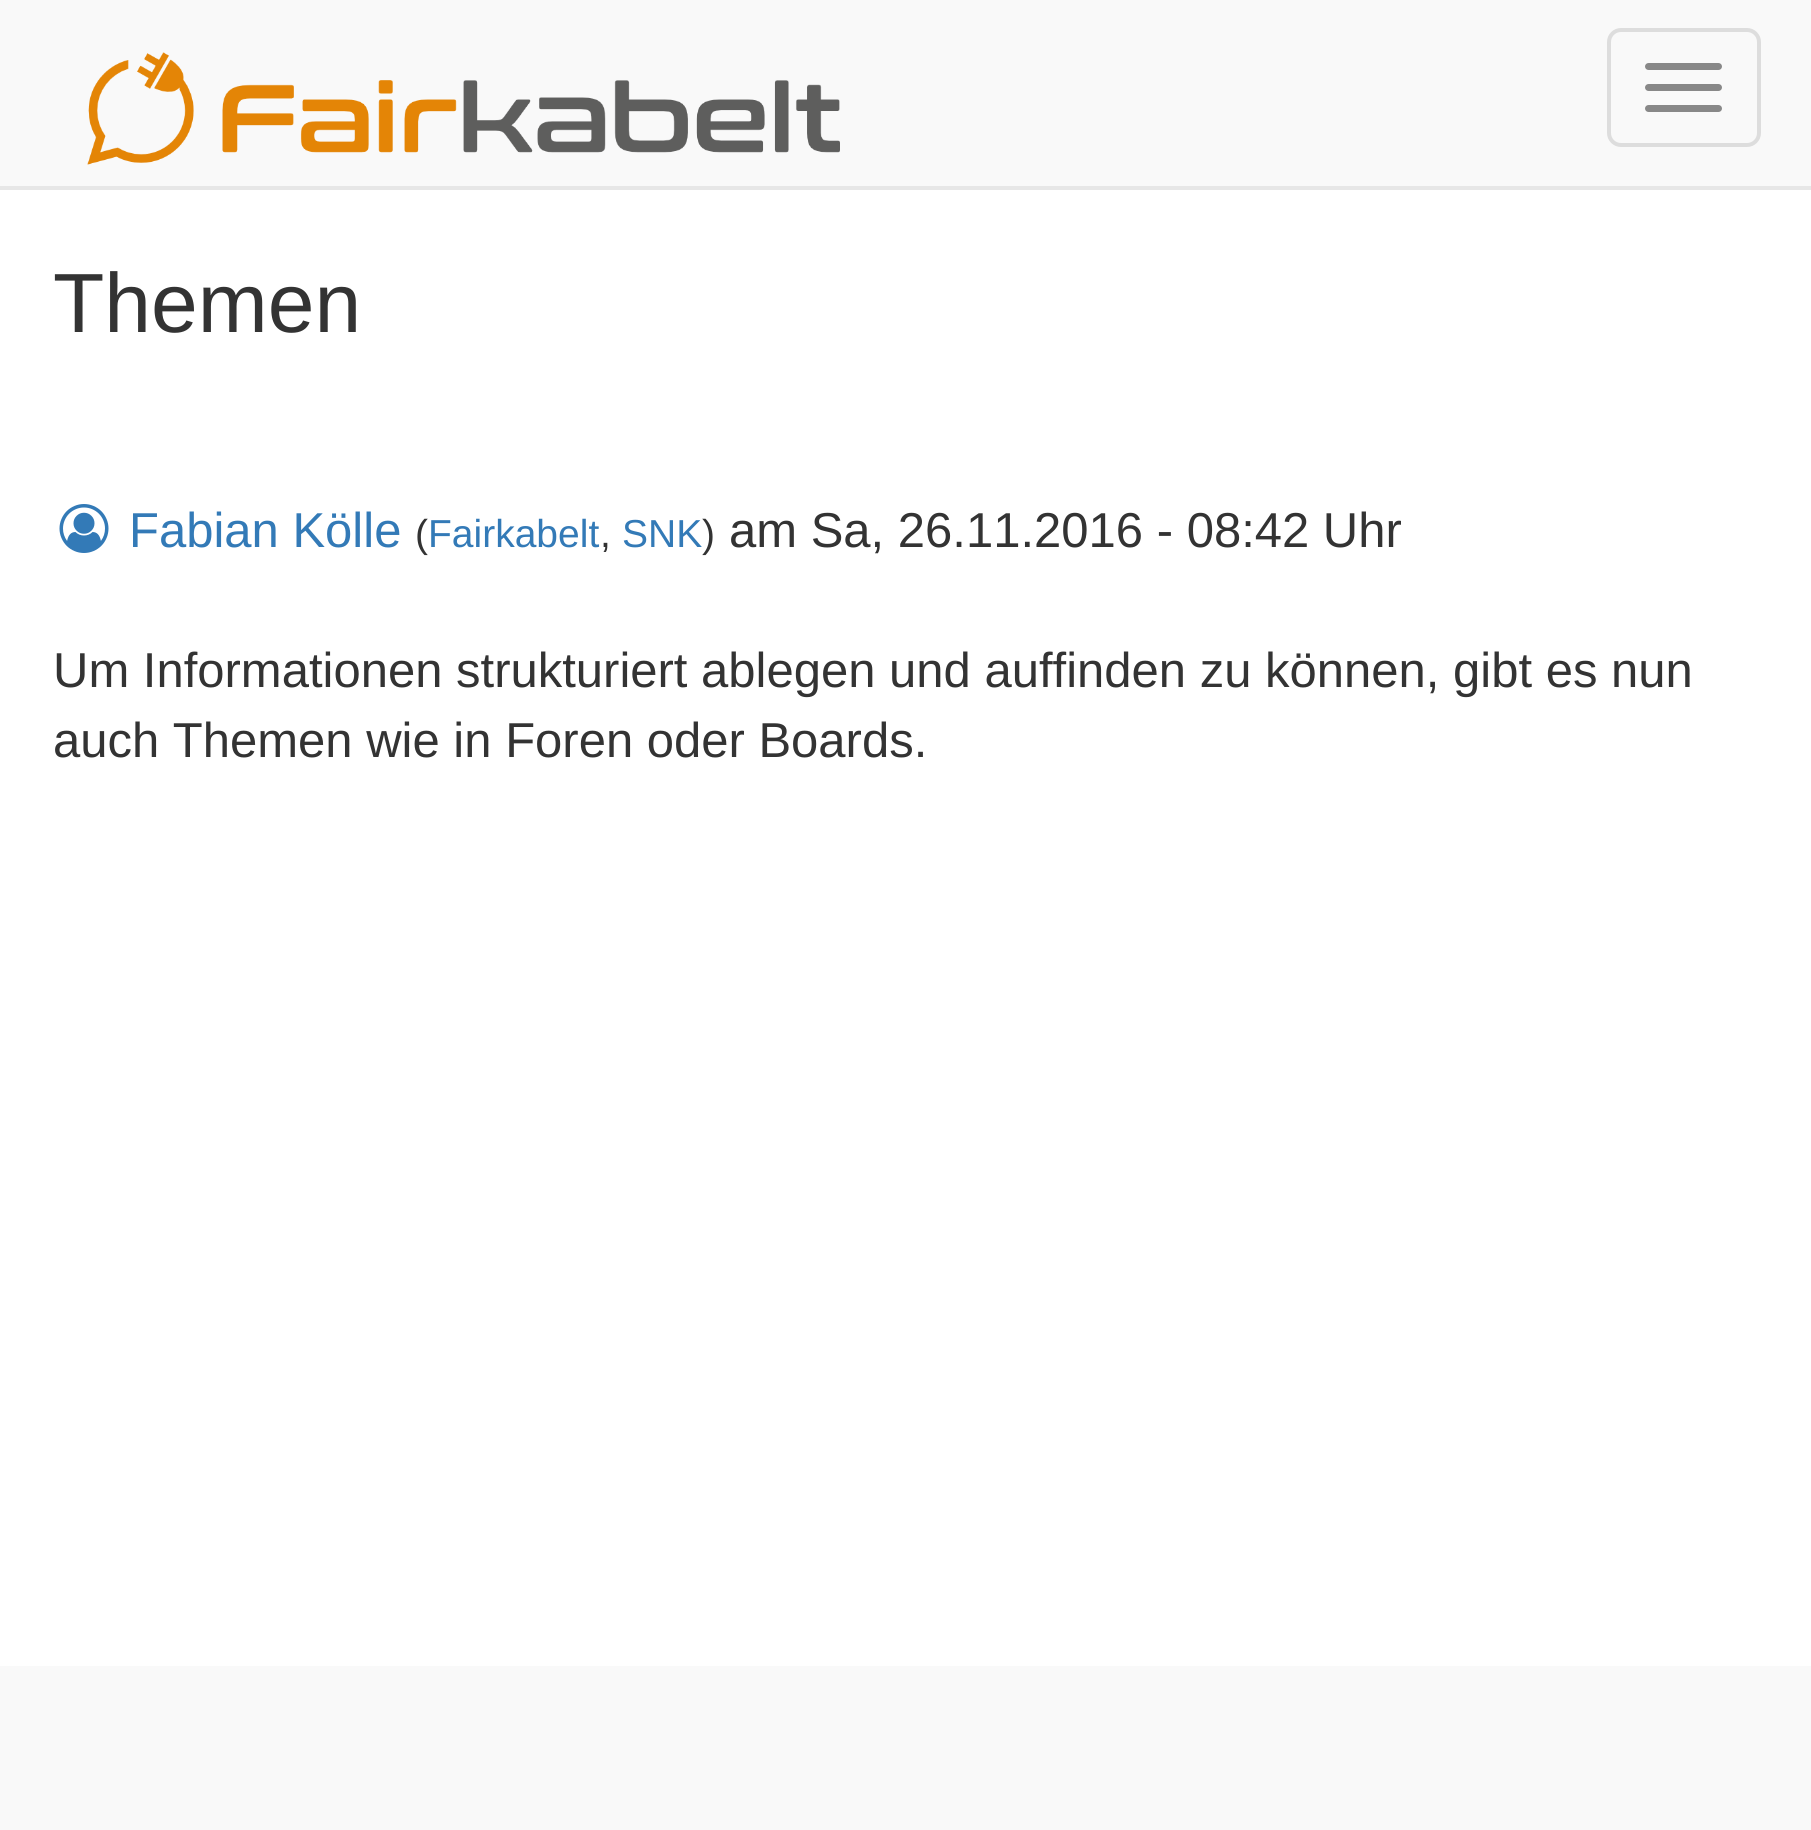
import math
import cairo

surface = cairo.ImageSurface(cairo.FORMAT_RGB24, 1811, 1830)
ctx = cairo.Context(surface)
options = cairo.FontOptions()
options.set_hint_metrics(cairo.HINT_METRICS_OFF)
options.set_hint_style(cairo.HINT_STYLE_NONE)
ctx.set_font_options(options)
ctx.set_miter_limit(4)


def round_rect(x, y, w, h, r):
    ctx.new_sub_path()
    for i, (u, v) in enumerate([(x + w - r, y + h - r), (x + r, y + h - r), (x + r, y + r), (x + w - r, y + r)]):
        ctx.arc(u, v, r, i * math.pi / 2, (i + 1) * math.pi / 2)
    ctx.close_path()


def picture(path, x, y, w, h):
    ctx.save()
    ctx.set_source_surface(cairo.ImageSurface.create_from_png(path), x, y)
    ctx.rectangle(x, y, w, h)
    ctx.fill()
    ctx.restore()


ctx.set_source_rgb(0.973, 0.973, 0.973)
ctx.paint()
ctx.set_source_rgb(0.906, 0.906, 0.906)
ctx.rectangle(0, 186, 1811, 4)
ctx.fill()
picture("img1.png", 87, 52, 753, 113)
round_rect(1609, 30, 150, 115, 12)
ctx.set_source_rgb(0.867, 0.867, 0.867)
ctx.set_line_width(4)
ctx.stroke()
ctx.set_source_rgb(0.533, 0.533, 0.533)
round_rect(1645, 63, 77, 7, 3.5)
ctx.fill()
round_rect(1645, 84, 77, 7, 3.5)
ctx.fill()
round_rect(1645, 105, 77, 7, 3.5)
ctx.fill()
ctx.set_source_rgb(1, 1, 1)
ctx.rectangle(0, 190, 1811, 1476)
ctx.fill()
ctx.select_font_face("Liberation Sans")
ctx.set_font_size(84)
ctx.set_source_rgb(0.2, 0.2, 0.2)
ctx.move_to(53, 332)
ctx.show_text("Themen")
picture("img2.png", 59, 504, 50, 49)
ctx.set_font_size(49)
ctx.set_source_rgb(0.2, 0.478, 0.718)
ctx.move_to(129, 547)
ctx.show_text("Fabian Kölle")
ctx.set_font_size(39)
ctx.set_source_rgb(0.2, 0.2, 0.2)
ctx.move_to(415, 547)
ctx.show_text("(")
ctx.set_source_rgb(0.2, 0.478, 0.718)
ctx.move_to(428, 547)
ctx.show_text("Fairkabelt")
ctx.set_source_rgb(0.2, 0.2, 0.2)
ctx.move_to(600, 547)
ctx.show_text(",")
ctx.set_source_rgb(0.2, 0.478, 0.718)
ctx.move_to(622, 547)
ctx.show_text("SNK")
ctx.set_source_rgb(0.2, 0.2, 0.2)
ctx.move_to(702, 547)
ctx.show_text(")")
ctx.set_font_size(49)
ctx.move_to(729, 547)
ctx.show_text("am Sa, 26.11.2016 - 08:42 Uhr")
ctx.move_to(53, 687)
ctx.show_text("Um Informationen strukturiert ablegen und auffinden zu können, gibt es nun")
ctx.move_to(53, 757)
ctx.show_text("auch Themen wie in Foren oder Boards.")
surface.write_to_png("page.png")
